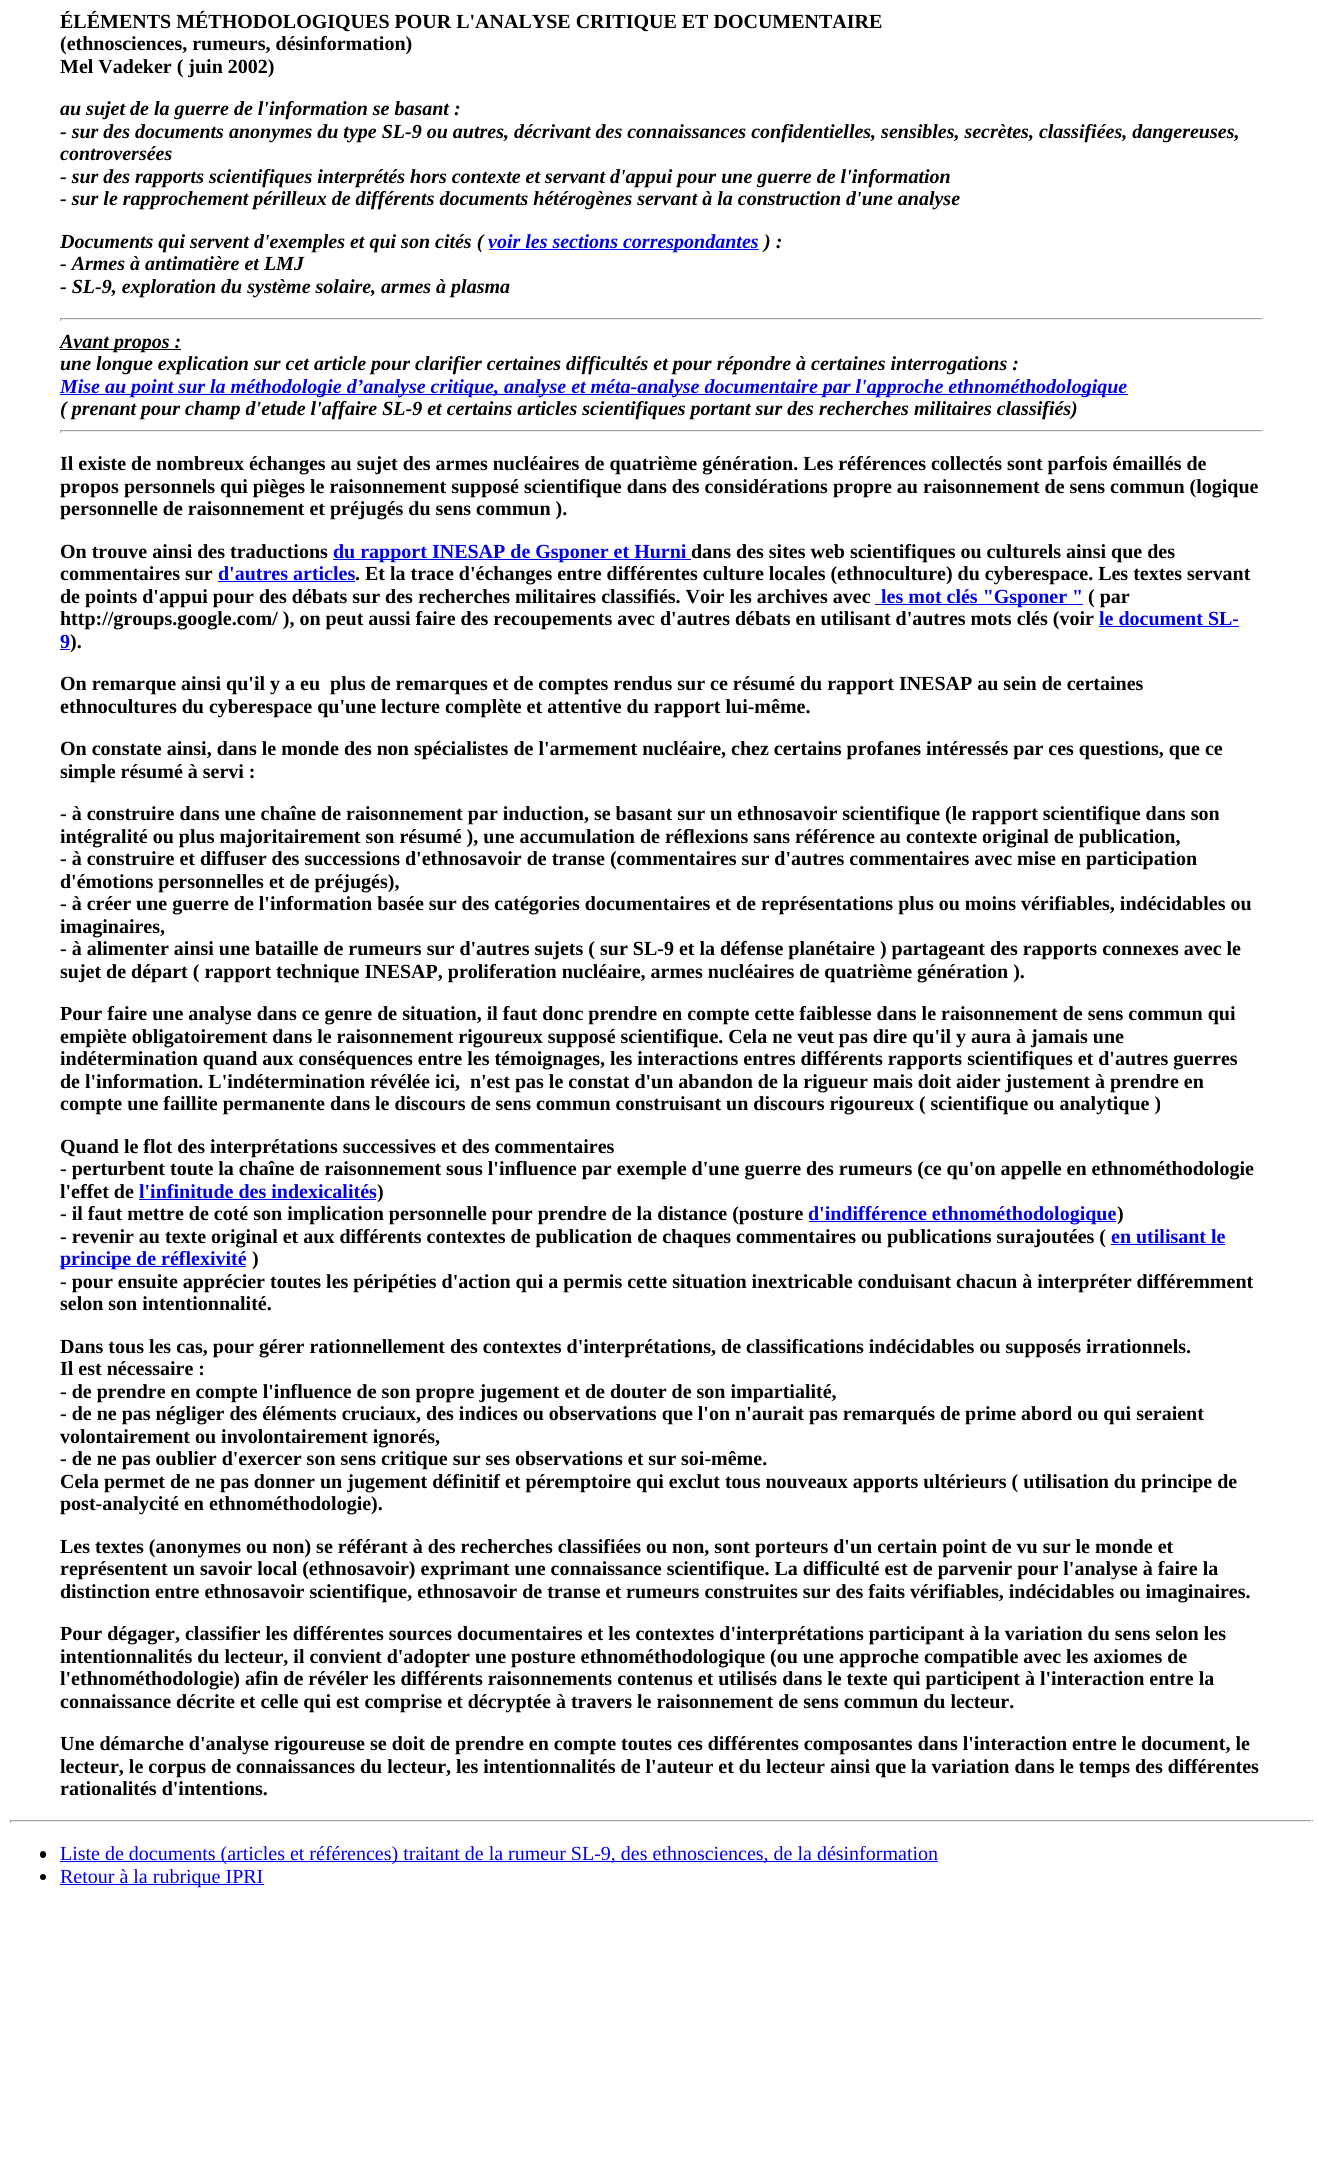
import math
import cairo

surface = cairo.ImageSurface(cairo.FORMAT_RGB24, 1319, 2173)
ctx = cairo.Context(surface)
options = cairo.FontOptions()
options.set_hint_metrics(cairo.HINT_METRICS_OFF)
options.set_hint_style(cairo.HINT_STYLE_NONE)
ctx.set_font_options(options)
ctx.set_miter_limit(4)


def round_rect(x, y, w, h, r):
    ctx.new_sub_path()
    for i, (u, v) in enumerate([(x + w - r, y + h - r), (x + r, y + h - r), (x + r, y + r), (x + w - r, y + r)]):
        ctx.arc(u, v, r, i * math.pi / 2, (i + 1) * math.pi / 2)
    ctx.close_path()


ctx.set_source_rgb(1, 1, 1)
ctx.paint()
ctx.select_font_face("Liberation Serif", cairo.FONT_SLANT_NORMAL, cairo.FONT_WEIGHT_BOLD)
ctx.set_font_size(20)
ctx.set_source_rgb(0, 0, 0)
ctx.move_to(60, 28)
ctx.show_text("ÉLÉMENTS MÉTHODOLOGIQUES POUR L'ANALYSE CRITIQUE ET DOCUMENTAIRE")
ctx.move_to(60, 50)
ctx.show_text("(ethnosciences, rumeurs, désinformation)")
ctx.move_to(60, 73)
ctx.show_text("Mel Vadeker ( juin 2002)")
ctx.select_font_face("Liberation Serif", cairo.FONT_SLANT_ITALIC, cairo.FONT_WEIGHT_BOLD)
ctx.move_to(60, 115)
ctx.show_text("au sujet de la guerre de l'information se basant :")
ctx.move_to(60, 138)
ctx.show_text("- sur des documents anonymes du type SL-9 ou autres, décrivant des connaissances confidentielles, sensibles, secrètes, classifiées, dangereuses,")
ctx.move_to(60, 160)
ctx.show_text("controversées")
ctx.move_to(60, 183)
ctx.show_text("- sur des rapports scientifiques interprétés hors contexte et servant d'appui pour une guerre de l'information")
ctx.move_to(60, 205)
ctx.show_text("- sur le rapprochement périlleux de différents documents hétérogènes servant à la construction d'une analyse")
ctx.move_to(60, 248)
ctx.show_text("Documents qui servent d'exemples et qui son cités (")
ctx.set_source_rgb(0, 0, 0.933)
ctx.rectangle(489, 249, 270, 1)
ctx.fill()
ctx.move_to(488, 248)
ctx.show_text("voir les sections correspondantes")
ctx.set_source_rgb(0, 0, 0)
ctx.move_to(764, 248)
ctx.show_text(") :")
ctx.move_to(60, 270)
ctx.show_text("- Armes à antimatière et LMJ")
ctx.move_to(60, 293)
ctx.show_text("- SL-9, exploration du système solaire, armes à plasma")
ctx.set_source_rgb(0.624, 0.624, 0.624)
ctx.rectangle(60, 318, 1203, 1)
ctx.fill()
ctx.set_source_rgb(0.933, 0.933, 0.933)
ctx.rectangle(1261, 318, 1, 3)
ctx.fill()
ctx.rectangle(60, 319, 1203, 1)
ctx.fill()
ctx.set_source_rgb(0.624, 0.624, 0.624)
ctx.rectangle(60, 318, 1, 3)
ctx.fill()
ctx.set_source_rgb(0, 0, 0)
ctx.rectangle(60, 349, 121, 1)
ctx.fill()
ctx.move_to(60, 348)
ctx.show_text("Avant propos :")
ctx.move_to(60, 370)
ctx.show_text("une longue explication sur cet article pour clarifier certaines difficultés et pour répondre à certaines interrogations :")
ctx.set_source_rgb(0, 0, 0.933)
ctx.rectangle(60, 394, 1068, 1)
ctx.fill()
ctx.move_to(60, 393)
ctx.show_text("Mise au point sur la méthodologie d’analyse critique, analyse et méta-analyse documentaire par l'approche ethnométhodologique")
ctx.set_source_rgb(0, 0, 0)
ctx.move_to(60, 415)
ctx.show_text("( prenant pour champ d'etude l'affaire SL-9 et certains articles scientifiques portant sur des recherches militaires classifiés)")
ctx.set_source_rgb(0.624, 0.624, 0.624)
ctx.rectangle(60, 430, 1203, 1)
ctx.fill()
ctx.set_source_rgb(0.933, 0.933, 0.933)
ctx.rectangle(1261, 430, 1, 3)
ctx.fill()
ctx.rectangle(60, 431, 1203, 1)
ctx.fill()
ctx.set_source_rgb(0.624, 0.624, 0.624)
ctx.rectangle(60, 430, 1, 3)
ctx.fill()
ctx.select_font_face("Liberation Serif", cairo.FONT_SLANT_NORMAL, cairo.FONT_WEIGHT_BOLD)
ctx.set_source_rgb(0, 0, 0)
ctx.move_to(60, 470)
ctx.show_text("Il existe de nombreux échanges au sujet des armes nucléaires de quatrième génération. Les références collectés sont parfois émaillés de")
ctx.move_to(60, 493)
ctx.show_text("propos personnels qui pièges le raisonnement supposé scientifique dans des considérations propre au raisonnement de sens commun (logique")
ctx.move_to(60, 515)
ctx.show_text("personnelle de raisonnement et préjugés du sens commun ).")
ctx.move_to(60, 558)
ctx.show_text("On trouve ainsi des traductions")
ctx.set_source_rgb(0, 0, 0.933)
ctx.rectangle(333, 559, 358, 1)
ctx.fill()
ctx.move_to(333, 558)
ctx.show_text("du rapport INESAP de Gsponer et Hurni")
ctx.set_source_rgb(0, 0, 0)
ctx.move_to(691, 558)
ctx.show_text("dans des sites web scientifiques ou culturels ainsi que des")
ctx.move_to(60, 580)
ctx.show_text("commentaires sur")
ctx.set_source_rgb(0, 0, 0.933)
ctx.move_to(218, 580)
ctx.show_text("d'autres articles")
ctx.set_source_rgb(0, 0, 0)
ctx.move_to(355, 580)
ctx.show_text(". Et la trace d'échanges entre différentes culture locales (ethnoculture) du cyberespace. Les textes servant")
ctx.set_source_rgb(0, 0, 0.933)
ctx.rectangle(218, 581, 137, 1)
ctx.fill()
ctx.set_source_rgb(0, 0, 0)
ctx.move_to(60, 603)
ctx.show_text("de points d'appui pour des débats sur des recherches militaires classifiés. Voir les archives avec")
ctx.set_source_rgb(0, 0, 0.933)
ctx.rectangle(875, 604, 208, 1)
ctx.fill()
ctx.move_to(881, 603)
ctx.show_text("les mot clés \"Gsponer \"")
ctx.set_source_rgb(0, 0, 0)
ctx.move_to(1088, 603)
ctx.show_text("( par")
ctx.move_to(60, 625)
ctx.show_text("http://groups.google.com/ ), on peut aussi faire des recoupements avec d'autres débats en utilisant d'autres mots clés (voir")
ctx.set_source_rgb(0, 0, 0.933)
ctx.move_to(1099, 625)
ctx.show_text("le document SL-")
ctx.rectangle(1099, 626, 140, 1)
ctx.fill()
ctx.move_to(60, 648)
ctx.show_text("9")
ctx.set_source_rgb(0, 0, 0)
ctx.move_to(70, 648)
ctx.show_text(").")
ctx.set_source_rgb(0, 0, 0.933)
ctx.rectangle(60, 649, 10, 1)
ctx.fill()
ctx.set_source_rgb(0, 0, 0)
ctx.move_to(60, 690)
ctx.show_text("On remarque ainsi qu'il y a eu  plus de remarques et de comptes rendus sur ce résumé du rapport INESAP au sein de certaines")
ctx.move_to(60, 713)
ctx.show_text("ethnocultures du cyberespace qu'une lecture complète et attentive du rapport lui-même.")
ctx.move_to(60, 755)
ctx.show_text("On constate ainsi, dans le monde des non spécialistes de l'armement nucléaire, chez certains profanes intéressés par ces questions, que ce")
ctx.move_to(60, 778)
ctx.show_text("simple résumé à servi :")
ctx.move_to(60, 820)
ctx.show_text("- à construire dans une chaîne de raisonnement par induction, se basant sur un ethnosavoir scientifique (le rapport scientifique dans son")
ctx.move_to(60, 843)
ctx.show_text("intégralité ou plus majoritairement son résumé ), une accumulation de réflexions sans référence au contexte original de publication,")
ctx.move_to(60, 865)
ctx.show_text("- à construire et diffuser des successions d'ethnosavoir de transe (commentaires sur d'autres commentaires avec mise en participation")
ctx.move_to(60, 888)
ctx.show_text("d'émotions personnelles et de préjugés),")
ctx.move_to(60, 910)
ctx.show_text("- à créer une guerre de l'information basée sur des catégories documentaires et de représentations plus ou moins vérifiables, indécidables ou")
ctx.move_to(60, 933)
ctx.show_text("imaginaires,")
ctx.move_to(60, 955)
ctx.show_text("- à alimenter ainsi une bataille de rumeurs sur d'autres sujets ( sur SL-9 et la défense planétaire ) partageant des rapports connexes avec le")
ctx.move_to(60, 978)
ctx.show_text("sujet de départ ( rapport technique INESAP, proliferation nucléaire, armes nucléaires de quatrième génération ).")
ctx.move_to(60, 1020)
ctx.show_text("Pour faire une analyse dans ce genre de situation, il faut donc prendre en compte cette faiblesse dans le raisonnement de sens commun qui")
ctx.move_to(60, 1043)
ctx.show_text("empiète obligatoirement dans le raisonnement rigoureux supposé scientifique. Cela ne veut pas dire qu'il y aura à jamais une")
ctx.move_to(60, 1065)
ctx.show_text("indétermination quand aux conséquences entre les témoignages, les interactions entres différents rapports scientifiques et d'autres guerres")
ctx.move_to(60, 1088)
ctx.show_text("de l'information. L'indétermination révélée ici,  n'est pas le constat d'un abandon de la rigueur mais doit aider justement à prendre en")
ctx.move_to(60, 1110)
ctx.show_text("compte une faillite permanente dans le discours de sens commun construisant un discours rigoureux ( scientifique ou analytique )")
ctx.move_to(60, 1153)
ctx.show_text("Quand le flot des interprétations successives et des commentaires")
ctx.move_to(60, 1175)
ctx.show_text("- perturbent toute la chaîne de raisonnement sous l'influence par exemple d'une guerre des rumeurs (ce qu'on appelle en ethnométhodologie")
ctx.move_to(60, 1198)
ctx.show_text("l'effet de")
ctx.set_source_rgb(0, 0, 0.933)
ctx.move_to(139, 1198)
ctx.show_text("l'infinitude des indexicalités")
ctx.set_source_rgb(0, 0, 0)
ctx.move_to(377, 1198)
ctx.show_text(")")
ctx.set_source_rgb(0, 0, 0.933)
ctx.rectangle(139, 1199, 237, 1)
ctx.fill()
ctx.set_source_rgb(0, 0, 0)
ctx.move_to(60, 1220)
ctx.show_text("- il faut mettre de coté son implication personnelle pour prendre de la distance (posture")
ctx.set_source_rgb(0, 0, 0.933)
ctx.rectangle(809, 1221, 307, 1)
ctx.fill()
ctx.move_to(808, 1220)
ctx.show_text("d'indifférence ethnométhodologique")
ctx.set_source_rgb(0, 0, 0)
ctx.move_to(1117, 1220)
ctx.show_text(")")
ctx.move_to(60, 1243)
ctx.show_text("- revenir au texte original et aux différents contextes de publication de chaques commentaires ou publications surajoutées (")
ctx.set_source_rgb(0, 0, 0.933)
ctx.move_to(1111, 1243)
ctx.show_text("en utilisant le")
ctx.rectangle(1111, 1244, 114, 1)
ctx.fill()
ctx.rectangle(60, 1266, 186, 1)
ctx.fill()
ctx.move_to(60, 1265)
ctx.show_text("principe de réflexivité")
ctx.set_source_rgb(0, 0, 0)
ctx.move_to(252, 1265)
ctx.show_text(")")
ctx.move_to(60, 1288)
ctx.show_text("- pour ensuite apprécier toutes les péripéties d'action qui a permis cette situation inextricable conduisant chacun à interpréter différemment")
ctx.move_to(60, 1310)
ctx.show_text("selon son intentionnalité.")
ctx.move_to(60, 1353)
ctx.show_text("Dans tous les cas, pour gérer rationnellement des contextes d'interprétations, de classifications indécidables ou supposés irrationnels.")
ctx.move_to(60, 1375)
ctx.show_text("Il est nécessaire :")
ctx.move_to(60, 1398)
ctx.show_text("- de prendre en compte l'influence de son propre jugement et de douter de son impartialité,")
ctx.move_to(60, 1420)
ctx.show_text("- de ne pas négliger des éléments cruciaux, des indices ou observations que l'on n'aurait pas remarqués de prime abord ou qui seraient")
ctx.move_to(60, 1443)
ctx.show_text("volontairement ou involontairement ignorés,")
ctx.move_to(60, 1465)
ctx.show_text("- de ne pas oublier d'exercer son sens critique sur ses observations et sur soi-même.")
ctx.move_to(60, 1488)
ctx.show_text("Cela permet de ne pas donner un jugement définitif et péremptoire qui exclut tous nouveaux apports ultérieurs ( utilisation du principe de")
ctx.move_to(60, 1510)
ctx.show_text("post-analycité en ethnométhodologie).")
ctx.move_to(60, 1553)
ctx.show_text("Les textes (anonymes ou non) se référant à des recherches classifiées ou non, sont porteurs d'un certain point de vu sur le monde et")
ctx.move_to(60, 1575)
ctx.show_text("représentent un savoir local (ethnosavoir) exprimant une connaissance scientifique. La difficulté est de parvenir pour l'analyse à faire la")
ctx.move_to(60, 1598)
ctx.show_text("distinction entre ethnosavoir scientifique, ethnosavoir de transe et rumeurs construites sur des faits vérifiables, indécidables ou imaginaires.")
ctx.move_to(60, 1640)
ctx.show_text("Pour dégager, classifier les différentes sources documentaires et les contextes d'interprétations participant à la variation du sens selon les")
ctx.move_to(60, 1663)
ctx.show_text("intentionnalités du lecteur, il convient d'adopter une posture ethnométhodologique (ou une approche compatible avec les axiomes de")
ctx.move_to(60, 1685)
ctx.show_text("l'ethnométhodologie) afin de révéler les différents raisonnements contenus et utilisés dans le texte qui participent à l'interaction entre la")
ctx.move_to(60, 1708)
ctx.show_text("connaissance décrite et celle qui est comprise et décryptée à travers le raisonnement de sens commun du lecteur.")
ctx.move_to(60, 1750)
ctx.show_text("Une démarche d'analyse rigoureuse se doit de prendre en compte toutes ces différentes composantes dans l'interaction entre le document, le")
ctx.move_to(60, 1773)
ctx.show_text("lecteur, le corpus de connaissances du lecteur, les intentionnalités de l'auteur et du lecteur ainsi que la variation dans le temps des différentes")
ctx.move_to(60, 1795)
ctx.show_text("rationalités d'intentions.")
ctx.set_source_rgb(0.624, 0.624, 0.624)
ctx.rectangle(10, 1820, 1303, 1)
ctx.fill()
ctx.set_source_rgb(0.933, 0.933, 0.933)
ctx.rectangle(1311, 1820, 1, 3)
ctx.fill()
ctx.rectangle(10, 1821, 1303, 1)
ctx.fill()
ctx.set_source_rgb(0.624, 0.624, 0.624)
ctx.rectangle(10, 1820, 1, 3)
ctx.fill()
ctx.set_source_rgb(0, 0, 0)
round_rect(40, 1851, 6, 7, 3)
ctx.fill()
ctx.set_source_rgb(0, 0, 0.933)
ctx.rectangle(60, 1861, 878, 1)
ctx.fill()
ctx.select_font_face("Liberation Serif")
ctx.move_to(60, 1860)
ctx.show_text("Liste de documents (articles et références) traitant de la rumeur SL-9, des ethnosciences, de la désinformation")
ctx.set_source_rgb(0, 0, 0)
ctx.new_path()
ctx.arc(43, 1877, 3, 0, 2 * math.pi)
ctx.fill()
ctx.set_source_rgb(0, 0, 0.933)
ctx.rectangle(60, 1884, 204, 1)
ctx.fill()
ctx.move_to(60, 1883)
ctx.show_text("Retour à la rubrique IPRI")
surface.write_to_png("page.png")
